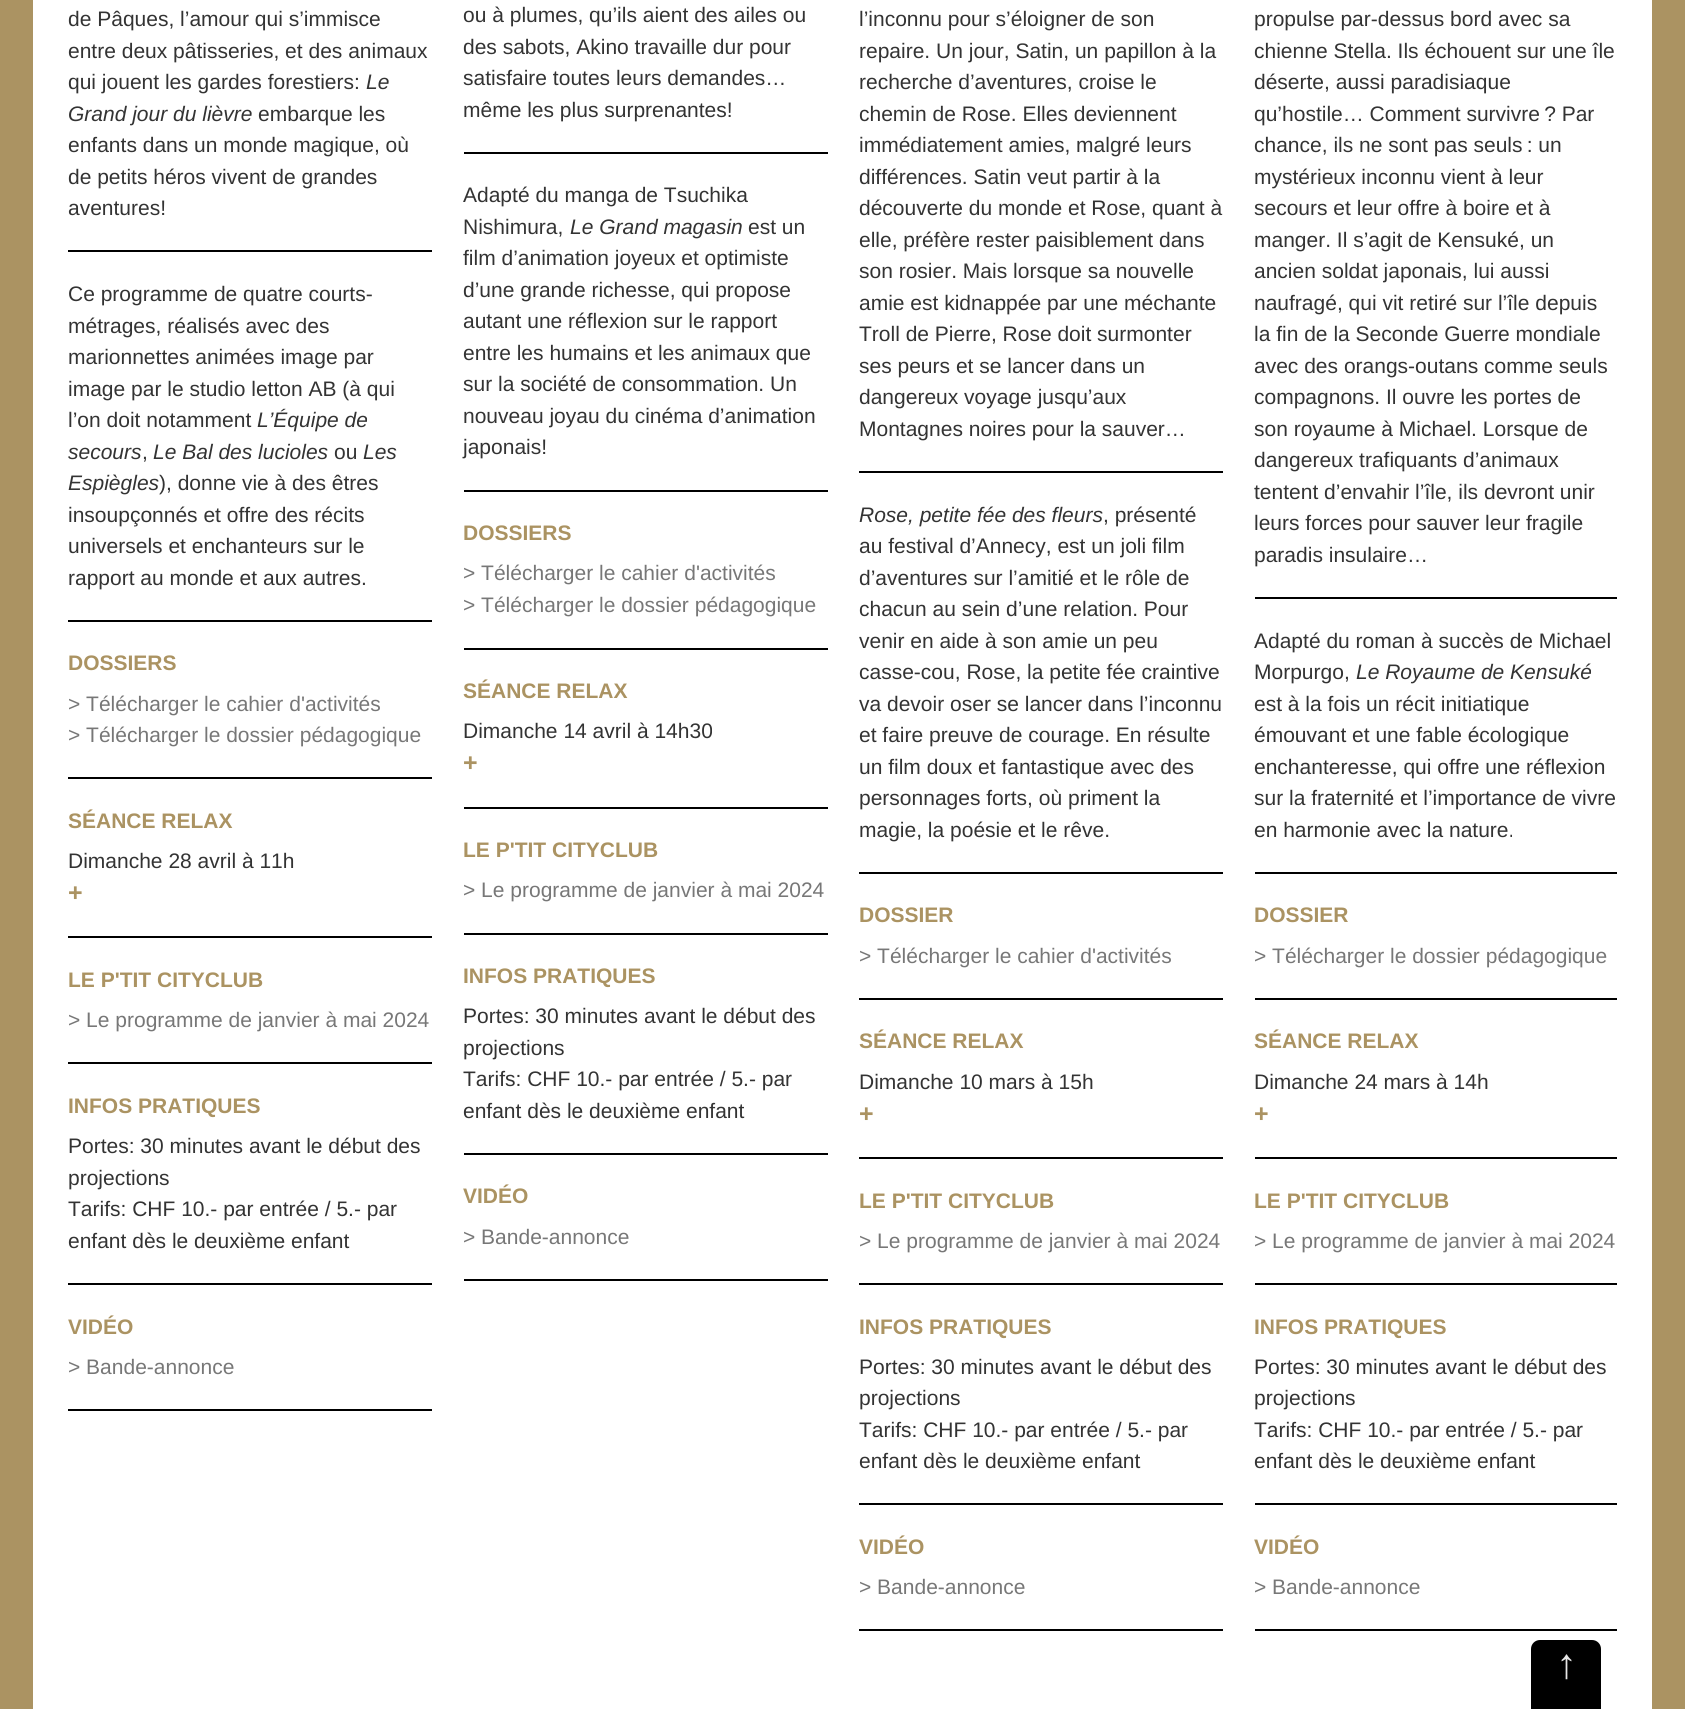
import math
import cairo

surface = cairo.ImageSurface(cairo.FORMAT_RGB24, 1685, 1709)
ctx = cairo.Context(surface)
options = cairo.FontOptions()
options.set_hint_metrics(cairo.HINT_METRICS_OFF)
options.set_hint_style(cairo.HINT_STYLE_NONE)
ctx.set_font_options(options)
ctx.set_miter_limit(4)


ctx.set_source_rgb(0.671, 0.576, 0.384)
ctx.paint()
ctx.set_source_rgb(1, 1, 1)
ctx.rectangle(33, 0, 1619, 1709)
ctx.fill()
ctx.select_font_face("Liberation Sans")
ctx.set_font_size(21)
ctx.set_source_rgb(0.2, 0.2, 0.2)
ctx.move_to(68, 26)
ctx.show_text("de Pâques, l’amour qui s’immisce")
ctx.move_to(68, 58)
ctx.show_text("entre deux pâtisseries, et des animaux")
ctx.move_to(68, 89)
ctx.show_text("qui jouent les gardes forestiers:")
ctx.select_font_face("Liberation Sans", cairo.FONT_SLANT_ITALIC)
ctx.move_to(366, 89)
ctx.show_text("Le")
ctx.move_to(68, 121)
ctx.show_text("Grand jour du lièvre")
ctx.select_font_face("Liberation Sans")
ctx.move_to(258, 121)
ctx.show_text("embarque les")
ctx.move_to(68, 152)
ctx.show_text("enfants dans un monde magique, où")
ctx.move_to(68, 184)
ctx.show_text("de petits héros vivent de grandes")
ctx.move_to(68, 215)
ctx.show_text("aventures!")
ctx.set_source_rgb(0, 0, 0)
ctx.rectangle(68, 250, 364, 2)
ctx.fill()
ctx.set_source_rgb(0.2, 0.2, 0.2)
ctx.move_to(68, 301)
ctx.show_text("Ce programme de quatre courts-")
ctx.move_to(68, 333)
ctx.show_text("métrages, réalisés avec des")
ctx.move_to(68, 364)
ctx.show_text("marionnettes animées image par")
ctx.move_to(68, 396)
ctx.show_text("image par le studio letton AB (à qui")
ctx.move_to(68, 427)
ctx.show_text("l’on doit notamment")
ctx.select_font_face("Liberation Sans", cairo.FONT_SLANT_ITALIC)
ctx.move_to(257, 427)
ctx.show_text("L’Équipe de")
ctx.move_to(68, 459)
ctx.show_text("secours")
ctx.select_font_face("Liberation Sans")
ctx.move_to(142, 459)
ctx.show_text(",")
ctx.select_font_face("Liberation Sans", cairo.FONT_SLANT_ITALIC)
ctx.move_to(153, 459)
ctx.show_text("Le Bal des lucioles")
ctx.select_font_face("Liberation Sans")
ctx.move_to(334, 459)
ctx.show_text("ou")
ctx.select_font_face("Liberation Sans", cairo.FONT_SLANT_ITALIC)
ctx.move_to(363, 459)
ctx.show_text("Les")
ctx.move_to(68, 490)
ctx.show_text("Espiègles")
ctx.select_font_face("Liberation Sans")
ctx.move_to(159, 490)
ctx.show_text("), donne vie à des êtres")
ctx.move_to(68, 522)
ctx.show_text("insoupçonnés et offre des récits")
ctx.move_to(68, 553)
ctx.show_text("universels et enchanteurs sur le")
ctx.move_to(68, 585)
ctx.show_text("rapport au monde et aux autres.")
ctx.set_source_rgb(0, 0, 0)
ctx.rectangle(68, 620, 364, 2)
ctx.fill()
ctx.select_font_face("Liberation Sans", cairo.FONT_SLANT_NORMAL, cairo.FONT_WEIGHT_BOLD)
ctx.set_source_rgb(0.671, 0.576, 0.384)
ctx.move_to(68, 670)
ctx.show_text("DOSSIERS")
ctx.select_font_face("Liberation Sans")
ctx.set_source_rgb(0.467, 0.467, 0.467)
ctx.move_to(68, 711)
ctx.show_text("> Télécharger le cahier d'activités")
ctx.move_to(68, 742)
ctx.show_text("> Télécharger le dossier pédagogique")
ctx.set_source_rgb(0, 0, 0)
ctx.rectangle(68, 777, 364, 2)
ctx.fill()
ctx.select_font_face("Liberation Sans", cairo.FONT_SLANT_NORMAL, cairo.FONT_WEIGHT_BOLD)
ctx.set_source_rgb(0.671, 0.576, 0.384)
ctx.move_to(68, 828)
ctx.show_text("SÉANCE RELAX")
ctx.select_font_face("Liberation Sans")
ctx.set_source_rgb(0.2, 0.2, 0.2)
ctx.move_to(68, 868)
ctx.show_text("Dimanche 28 avril à 11h")
ctx.select_font_face("Liberation Sans", cairo.FONT_SLANT_NORMAL, cairo.FONT_WEIGHT_BOLD)
ctx.set_font_size(25)
ctx.set_source_rgb(0.671, 0.576, 0.384)
ctx.move_to(68, 901)
ctx.show_text("+")
ctx.set_source_rgb(0, 0, 0)
ctx.rectangle(68, 936, 364, 2)
ctx.fill()
ctx.set_font_size(21)
ctx.set_source_rgb(0.671, 0.576, 0.384)
ctx.move_to(68, 987)
ctx.show_text("LE P'TIT CITYCLUB")
ctx.select_font_face("Liberation Sans")
ctx.set_source_rgb(0.467, 0.467, 0.467)
ctx.move_to(68, 1027)
ctx.show_text("> Le programme de janvier à mai 2024")
ctx.set_source_rgb(0, 0, 0)
ctx.rectangle(68, 1062, 364, 2)
ctx.fill()
ctx.select_font_face("Liberation Sans", cairo.FONT_SLANT_NORMAL, cairo.FONT_WEIGHT_BOLD)
ctx.set_source_rgb(0.671, 0.576, 0.384)
ctx.move_to(68, 1113)
ctx.show_text("INFOS PRATIQUES")
ctx.select_font_face("Liberation Sans")
ctx.set_source_rgb(0.2, 0.2, 0.2)
ctx.move_to(68, 1153)
ctx.show_text("Portes: 30 minutes avant le début des")
ctx.move_to(68, 1185)
ctx.show_text("projections")
ctx.move_to(68, 1216)
ctx.show_text("Tarifs: CHF 10.- par entrée / 5.- par")
ctx.move_to(68, 1248)
ctx.show_text("enfant dès le deuxième enfant")
ctx.set_source_rgb(0, 0, 0)
ctx.rectangle(68, 1283, 364, 2)
ctx.fill()
ctx.select_font_face("Liberation Sans", cairo.FONT_SLANT_NORMAL, cairo.FONT_WEIGHT_BOLD)
ctx.set_source_rgb(0.671, 0.576, 0.384)
ctx.move_to(68, 1334)
ctx.show_text("VIDÉO")
ctx.select_font_face("Liberation Sans")
ctx.set_source_rgb(0.467, 0.467, 0.467)
ctx.move_to(68, 1374)
ctx.show_text("> Bande-annonce")
ctx.set_source_rgb(0, 0, 0)
ctx.rectangle(68, 1409, 364, 2)
ctx.fill()
ctx.set_source_rgb(0.2, 0.2, 0.2)
ctx.move_to(463, 22)
ctx.show_text("ou à plumes, qu’ils aient des ailes ou")
ctx.move_to(463, 54)
ctx.show_text("des sabots, Akino travaille dur pour")
ctx.move_to(463, 85)
ctx.show_text("satisfaire toutes leurs demandes…")
ctx.move_to(463, 117)
ctx.show_text("même les plus surprenantes!")
ctx.set_source_rgb(0, 0, 0)
ctx.rectangle(464, 152, 364, 2)
ctx.fill()
ctx.set_source_rgb(0.2, 0.2, 0.2)
ctx.move_to(463, 202)
ctx.show_text("Adapté du manga de Tsuchika")
ctx.move_to(463, 234)
ctx.show_text("Nishimura,")
ctx.select_font_face("Liberation Sans", cairo.FONT_SLANT_ITALIC)
ctx.move_to(570, 234)
ctx.show_text("Le Grand magasin")
ctx.select_font_face("Liberation Sans")
ctx.move_to(748, 234)
ctx.show_text("est un")
ctx.move_to(463, 265)
ctx.show_text("film d’animation joyeux et optimiste")
ctx.move_to(463, 297)
ctx.show_text("d’une grande richesse, qui propose")
ctx.move_to(463, 328)
ctx.show_text("autant une réflexion sur le rapport")
ctx.move_to(463, 360)
ctx.show_text("entre les humains et les animaux que")
ctx.move_to(463, 391)
ctx.show_text("sur la société de consommation. Un")
ctx.move_to(463, 423)
ctx.show_text("nouveau joyau du cinéma d’animation")
ctx.move_to(463, 454)
ctx.show_text("japonais!")
ctx.set_source_rgb(0, 0, 0)
ctx.rectangle(464, 490, 364, 2)
ctx.fill()
ctx.select_font_face("Liberation Sans", cairo.FONT_SLANT_NORMAL, cairo.FONT_WEIGHT_BOLD)
ctx.set_source_rgb(0.671, 0.576, 0.384)
ctx.move_to(463, 540)
ctx.show_text("DOSSIERS")
ctx.select_font_face("Liberation Sans")
ctx.set_source_rgb(0.467, 0.467, 0.467)
ctx.move_to(463, 580)
ctx.show_text("> Télécharger le cahier d'activités")
ctx.move_to(463, 612)
ctx.show_text("> Télécharger le dossier pédagogique")
ctx.set_source_rgb(0, 0, 0)
ctx.rectangle(464, 648, 364, 2)
ctx.fill()
ctx.select_font_face("Liberation Sans", cairo.FONT_SLANT_NORMAL, cairo.FONT_WEIGHT_BOLD)
ctx.set_source_rgb(0.671, 0.576, 0.384)
ctx.move_to(463, 698)
ctx.show_text("SÉANCE RELAX")
ctx.select_font_face("Liberation Sans")
ctx.set_source_rgb(0.2, 0.2, 0.2)
ctx.move_to(463, 738)
ctx.show_text("Dimanche 14 avril à 14h30")
ctx.select_font_face("Liberation Sans", cairo.FONT_SLANT_NORMAL, cairo.FONT_WEIGHT_BOLD)
ctx.set_font_size(25)
ctx.set_source_rgb(0.671, 0.576, 0.384)
ctx.move_to(463, 771)
ctx.show_text("+")
ctx.set_source_rgb(0, 0, 0)
ctx.rectangle(464, 807, 364, 2)
ctx.fill()
ctx.set_font_size(21)
ctx.set_source_rgb(0.671, 0.576, 0.384)
ctx.move_to(463, 857)
ctx.show_text("LE P'TIT CITYCLUB")
ctx.select_font_face("Liberation Sans")
ctx.set_source_rgb(0.467, 0.467, 0.467)
ctx.move_to(463, 897)
ctx.show_text("> Le programme de janvier à mai 2024")
ctx.set_source_rgb(0, 0, 0)
ctx.rectangle(464, 933, 364, 2)
ctx.fill()
ctx.select_font_face("Liberation Sans", cairo.FONT_SLANT_NORMAL, cairo.FONT_WEIGHT_BOLD)
ctx.set_source_rgb(0.671, 0.576, 0.384)
ctx.move_to(463, 983)
ctx.show_text("INFOS PRATIQUES")
ctx.select_font_face("Liberation Sans")
ctx.set_source_rgb(0.2, 0.2, 0.2)
ctx.move_to(463, 1023)
ctx.show_text("Portes: 30 minutes avant le début des")
ctx.move_to(463, 1055)
ctx.show_text("projections")
ctx.move_to(463, 1086)
ctx.show_text("Tarifs: CHF 10.- par entrée / 5.- par")
ctx.move_to(463, 1118)
ctx.show_text("enfant dès le deuxième enfant")
ctx.set_source_rgb(0, 0, 0)
ctx.rectangle(464, 1153, 364, 2)
ctx.fill()
ctx.select_font_face("Liberation Sans", cairo.FONT_SLANT_NORMAL, cairo.FONT_WEIGHT_BOLD)
ctx.set_source_rgb(0.671, 0.576, 0.384)
ctx.move_to(463, 1203)
ctx.show_text("VIDÉO")
ctx.select_font_face("Liberation Sans")
ctx.set_source_rgb(0.467, 0.467, 0.467)
ctx.move_to(463, 1244)
ctx.show_text("> Bande-annonce")
ctx.set_source_rgb(0, 0, 0)
ctx.rectangle(464, 1279, 364, 2)
ctx.fill()
ctx.set_source_rgb(0.2, 0.2, 0.2)
ctx.move_to(859, 26)
ctx.show_text("l’inconnu pour s’éloigner de son")
ctx.move_to(859, 58)
ctx.show_text("repaire. Un jour, Satin, un papillon à la")
ctx.move_to(859, 89)
ctx.show_text("recherche d’aventures, croise le")
ctx.move_to(859, 121)
ctx.show_text("chemin de Rose. Elles deviennent")
ctx.move_to(859, 152)
ctx.show_text("immédiatement amies, malgré leurs")
ctx.move_to(859, 184)
ctx.show_text("différences. Satin veut partir à la")
ctx.move_to(859, 215)
ctx.show_text("découverte du monde et Rose, quant à")
ctx.move_to(859, 247)
ctx.show_text("elle, préfère rester paisiblement dans")
ctx.move_to(859, 278)
ctx.show_text("son rosier. Mais lorsque sa nouvelle")
ctx.move_to(859, 310)
ctx.show_text("amie est kidnappée par une méchante")
ctx.move_to(859, 341)
ctx.show_text("Troll de Pierre, Rose doit surmonter")
ctx.move_to(859, 373)
ctx.show_text("ses peurs et se lancer dans un")
ctx.move_to(859, 404)
ctx.show_text("dangereux voyage jusqu’aux")
ctx.move_to(859, 436)
ctx.show_text("Montagnes noires pour la sauver…")
ctx.set_source_rgb(0, 0, 0)
ctx.rectangle(859, 471, 364, 2)
ctx.fill()
ctx.select_font_face("Liberation Sans", cairo.FONT_SLANT_ITALIC)
ctx.set_source_rgb(0.2, 0.2, 0.2)
ctx.move_to(859, 522)
ctx.show_text("Rose, petite fée des fleurs")
ctx.select_font_face("Liberation Sans")
ctx.move_to(1103, 522)
ctx.show_text(", présenté")
ctx.move_to(859, 553)
ctx.show_text("au festival d’Annecy, est un joli film")
ctx.move_to(859, 585)
ctx.show_text("d’aventures sur l’amitié et le rôle de")
ctx.move_to(859, 616)
ctx.show_text("chacun au sein d’une relation. Pour")
ctx.move_to(859, 648)
ctx.show_text("venir en aide à son amie un peu")
ctx.move_to(859, 679)
ctx.show_text("casse-cou, Rose, la petite fée craintive")
ctx.move_to(859, 711)
ctx.show_text("va devoir oser se lancer dans l’inconnu")
ctx.move_to(859, 742)
ctx.show_text("et faire preuve de courage. En résulte")
ctx.move_to(859, 774)
ctx.show_text("un film doux et fantastique avec des")
ctx.move_to(859, 805)
ctx.show_text("personnages forts, où priment la")
ctx.move_to(859, 837)
ctx.show_text("magie, la poésie et le rêve.")
ctx.set_source_rgb(0, 0, 0)
ctx.rectangle(859, 872, 364, 2)
ctx.fill()
ctx.select_font_face("Liberation Sans", cairo.FONT_SLANT_NORMAL, cairo.FONT_WEIGHT_BOLD)
ctx.set_source_rgb(0.671, 0.576, 0.384)
ctx.move_to(859, 922)
ctx.show_text("DOSSIER")
ctx.select_font_face("Liberation Sans")
ctx.set_source_rgb(0.467, 0.467, 0.467)
ctx.move_to(859, 963)
ctx.show_text("> Télécharger le cahier d'activités")
ctx.set_source_rgb(0, 0, 0)
ctx.rectangle(859, 998, 364, 2)
ctx.fill()
ctx.select_font_face("Liberation Sans", cairo.FONT_SLANT_NORMAL, cairo.FONT_WEIGHT_BOLD)
ctx.set_source_rgb(0.671, 0.576, 0.384)
ctx.move_to(859, 1048)
ctx.show_text("SÉANCE RELAX")
ctx.select_font_face("Liberation Sans")
ctx.set_source_rgb(0.2, 0.2, 0.2)
ctx.move_to(859, 1089)
ctx.show_text("Dimanche 10 mars à 15h")
ctx.select_font_face("Liberation Sans", cairo.FONT_SLANT_NORMAL, cairo.FONT_WEIGHT_BOLD)
ctx.set_font_size(25)
ctx.set_source_rgb(0.671, 0.576, 0.384)
ctx.move_to(859, 1122)
ctx.show_text("+")
ctx.set_source_rgb(0, 0, 0)
ctx.rectangle(859, 1157, 364, 2)
ctx.fill()
ctx.set_font_size(21)
ctx.set_source_rgb(0.671, 0.576, 0.384)
ctx.move_to(859, 1208)
ctx.show_text("LE P'TIT CITYCLUB")
ctx.select_font_face("Liberation Sans")
ctx.set_source_rgb(0.467, 0.467, 0.467)
ctx.move_to(859, 1248)
ctx.show_text("> Le programme de janvier à mai 2024")
ctx.set_source_rgb(0, 0, 0)
ctx.rectangle(859, 1283, 364, 2)
ctx.fill()
ctx.select_font_face("Liberation Sans", cairo.FONT_SLANT_NORMAL, cairo.FONT_WEIGHT_BOLD)
ctx.set_source_rgb(0.671, 0.576, 0.384)
ctx.move_to(859, 1334)
ctx.show_text("INFOS PRATIQUES")
ctx.select_font_face("Liberation Sans")
ctx.set_source_rgb(0.2, 0.2, 0.2)
ctx.move_to(859, 1374)
ctx.show_text("Portes: 30 minutes avant le début des")
ctx.move_to(859, 1405)
ctx.show_text("projections")
ctx.move_to(859, 1437)
ctx.show_text("Tarifs: CHF 10.- par entrée / 5.- par")
ctx.move_to(859, 1468)
ctx.show_text("enfant dès le deuxième enfant")
ctx.set_source_rgb(0, 0, 0)
ctx.rectangle(859, 1503, 364, 2)
ctx.fill()
ctx.select_font_face("Liberation Sans", cairo.FONT_SLANT_NORMAL, cairo.FONT_WEIGHT_BOLD)
ctx.set_source_rgb(0.671, 0.576, 0.384)
ctx.move_to(859, 1554)
ctx.show_text("VIDÉO")
ctx.select_font_face("Liberation Sans")
ctx.set_source_rgb(0.467, 0.467, 0.467)
ctx.move_to(859, 1594)
ctx.show_text("> Bande-annonce")
ctx.set_source_rgb(0, 0, 0)
ctx.rectangle(859, 1629, 364, 2)
ctx.fill()
ctx.set_source_rgb(0.2, 0.2, 0.2)
ctx.move_to(1254, 26)
ctx.show_text("propulse par-dessus bord avec sa")
ctx.move_to(1254, 58)
ctx.show_text("chienne Stella. Ils échouent sur une île")
ctx.move_to(1254, 89)
ctx.show_text("déserte, aussi paradisiaque")
ctx.move_to(1254, 121)
ctx.show_text("qu’hostile… Comment survivre ? Par")
ctx.move_to(1254, 152)
ctx.show_text("chance, ils ne sont pas seuls : un")
ctx.move_to(1254, 184)
ctx.show_text("mystérieux inconnu vient à leur")
ctx.move_to(1254, 215)
ctx.show_text("secours et leur offre à boire et à")
ctx.move_to(1254, 247)
ctx.show_text("manger. Il s’agit de Kensuké, un")
ctx.move_to(1254, 278)
ctx.show_text("ancien soldat japonais, lui aussi")
ctx.move_to(1254, 310)
ctx.show_text("naufragé, qui vit retiré sur l’île depuis")
ctx.move_to(1254, 341)
ctx.show_text("la fin de la Seconde Guerre mondiale")
ctx.move_to(1254, 373)
ctx.show_text("avec des orangs-outans comme seuls")
ctx.move_to(1254, 404)
ctx.show_text("compagnons. Il ouvre les portes de")
ctx.move_to(1254, 436)
ctx.show_text("son royaume à Michael. Lorsque de")
ctx.move_to(1254, 467)
ctx.show_text("dangereux trafiquants d’animaux")
ctx.move_to(1254, 499)
ctx.show_text("tentent d’envahir l’île, ils devront unir")
ctx.move_to(1254, 530)
ctx.show_text("leurs forces pour sauver leur fragile")
ctx.move_to(1254, 562)
ctx.show_text("paradis insulaire…")
ctx.set_source_rgb(0, 0, 0)
ctx.rectangle(1255, 597, 362, 2)
ctx.fill()
ctx.set_source_rgb(0.2, 0.2, 0.2)
ctx.move_to(1254, 648)
ctx.show_text("Adapté du roman à succès de Michael")
ctx.move_to(1254, 679)
ctx.show_text("Morpurgo,")
ctx.select_font_face("Liberation Sans", cairo.FONT_SLANT_ITALIC)
ctx.move_to(1356, 679)
ctx.show_text("Le Royaume de Kensuké")
ctx.select_font_face("Liberation Sans")
ctx.move_to(1254, 711)
ctx.show_text("est à la fois un récit initiatique")
ctx.move_to(1254, 742)
ctx.show_text("émouvant et une fable écologique")
ctx.move_to(1254, 774)
ctx.show_text("enchanteresse, qui offre une réflexion")
ctx.move_to(1254, 805)
ctx.show_text("sur la fraternité et l’importance de vivre")
ctx.move_to(1254, 837)
ctx.show_text("en harmonie avec la nature.")
ctx.set_source_rgb(0, 0, 0)
ctx.rectangle(1255, 872, 362, 2)
ctx.fill()
ctx.select_font_face("Liberation Sans", cairo.FONT_SLANT_NORMAL, cairo.FONT_WEIGHT_BOLD)
ctx.set_source_rgb(0.671, 0.576, 0.384)
ctx.move_to(1254, 922)
ctx.show_text("DOSSIER")
ctx.select_font_face("Liberation Sans")
ctx.set_source_rgb(0.467, 0.467, 0.467)
ctx.move_to(1254, 963)
ctx.show_text("> Télécharger le dossier pédagogique")
ctx.set_source_rgb(0, 0, 0)
ctx.rectangle(1255, 998, 362, 2)
ctx.fill()
ctx.select_font_face("Liberation Sans", cairo.FONT_SLANT_NORMAL, cairo.FONT_WEIGHT_BOLD)
ctx.set_source_rgb(0.671, 0.576, 0.384)
ctx.move_to(1254, 1048)
ctx.show_text("SÉANCE RELAX")
ctx.select_font_face("Liberation Sans")
ctx.set_source_rgb(0.2, 0.2, 0.2)
ctx.move_to(1254, 1089)
ctx.show_text("Dimanche 24 mars à 14h")
ctx.select_font_face("Liberation Sans", cairo.FONT_SLANT_NORMAL, cairo.FONT_WEIGHT_BOLD)
ctx.set_font_size(25)
ctx.set_source_rgb(0.671, 0.576, 0.384)
ctx.move_to(1254, 1122)
ctx.show_text("+")
ctx.set_source_rgb(0, 0, 0)
ctx.rectangle(1255, 1157, 362, 2)
ctx.fill()
ctx.set_font_size(21)
ctx.set_source_rgb(0.671, 0.576, 0.384)
ctx.move_to(1254, 1208)
ctx.show_text("LE P'TIT CITYCLUB")
ctx.select_font_face("Liberation Sans")
ctx.set_source_rgb(0.467, 0.467, 0.467)
ctx.move_to(1254, 1248)
ctx.show_text("> Le programme de janvier à mai 2024")
ctx.set_source_rgb(0, 0, 0)
ctx.rectangle(1255, 1283, 362, 2)
ctx.fill()
ctx.select_font_face("Liberation Sans", cairo.FONT_SLANT_NORMAL, cairo.FONT_WEIGHT_BOLD)
ctx.set_source_rgb(0.671, 0.576, 0.384)
ctx.move_to(1254, 1334)
ctx.show_text("INFOS PRATIQUES")
ctx.select_font_face("Liberation Sans")
ctx.set_source_rgb(0.2, 0.2, 0.2)
ctx.move_to(1254, 1374)
ctx.show_text("Portes: 30 minutes avant le début des")
ctx.move_to(1254, 1405)
ctx.show_text("projections")
ctx.move_to(1254, 1437)
ctx.show_text("Tarifs: CHF 10.- par entrée / 5.- par")
ctx.move_to(1254, 1468)
ctx.show_text("enfant dès le deuxième enfant")
ctx.set_source_rgb(0, 0, 0)
ctx.rectangle(1255, 1503, 362, 2)
ctx.fill()
ctx.select_font_face("Liberation Sans", cairo.FONT_SLANT_NORMAL, cairo.FONT_WEIGHT_BOLD)
ctx.set_source_rgb(0.671, 0.576, 0.384)
ctx.move_to(1254, 1554)
ctx.show_text("VIDÉO")
ctx.select_font_face("Liberation Sans")
ctx.set_source_rgb(0.467, 0.467, 0.467)
ctx.move_to(1254, 1594)
ctx.show_text("> Bande-annonce")
ctx.set_source_rgb(0, 0, 0)
ctx.rectangle(1255, 1629, 362, 2)
ctx.fill()
ctx.new_path()
ctx.move_to(1540, 1640)
ctx.line_to(1592, 1640)
ctx.curve_to(1597, 1640, 1601, 1644, 1601, 1649)
ctx.line_to(1601, 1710)
ctx.line_to(1531, 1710)
ctx.line_to(1531, 1649)
ctx.curve_to(1531, 1644, 1535, 1640, 1540, 1640)
ctx.close_path()
ctx.fill()
ctx.set_font_size(42)
ctx.set_source_rgb(0.902, 0.902, 0.902)
ctx.move_to(1556, 1678)
ctx.show_text("↑")
surface.write_to_png("page.png")
